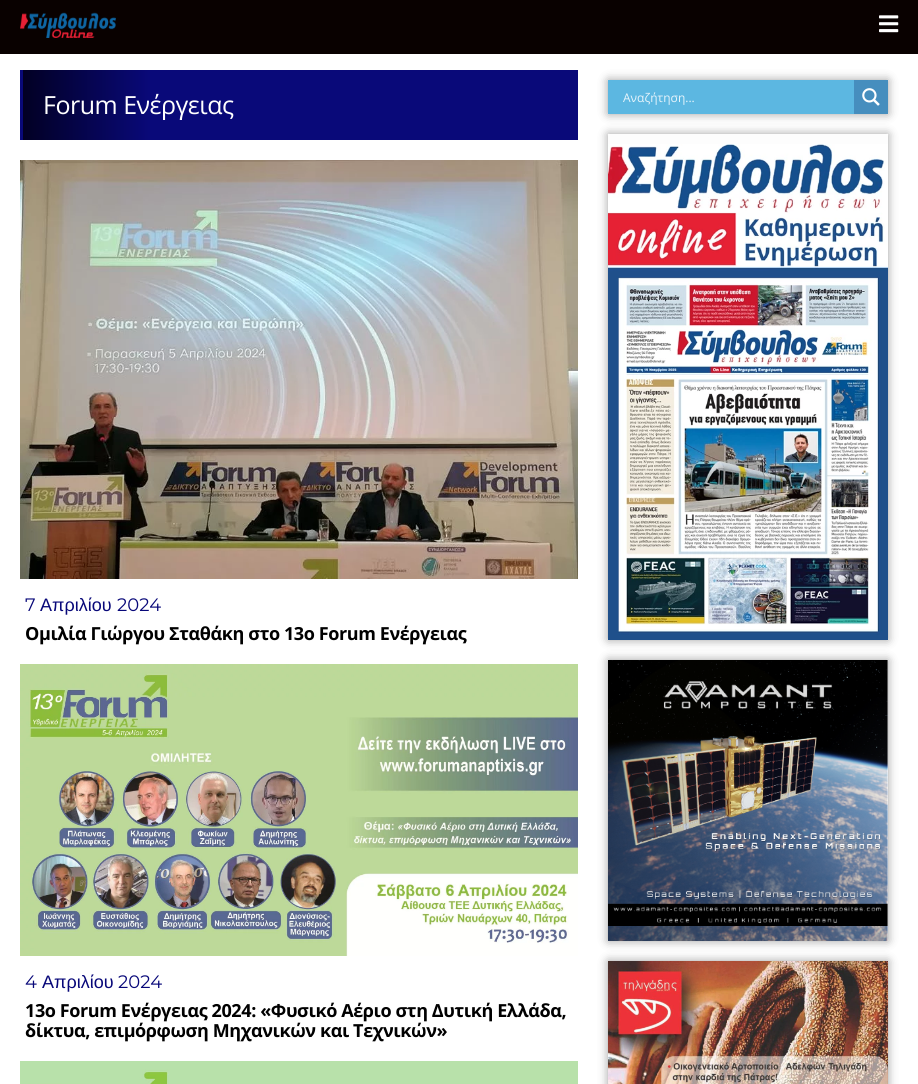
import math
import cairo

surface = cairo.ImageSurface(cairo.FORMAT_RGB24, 918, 1084)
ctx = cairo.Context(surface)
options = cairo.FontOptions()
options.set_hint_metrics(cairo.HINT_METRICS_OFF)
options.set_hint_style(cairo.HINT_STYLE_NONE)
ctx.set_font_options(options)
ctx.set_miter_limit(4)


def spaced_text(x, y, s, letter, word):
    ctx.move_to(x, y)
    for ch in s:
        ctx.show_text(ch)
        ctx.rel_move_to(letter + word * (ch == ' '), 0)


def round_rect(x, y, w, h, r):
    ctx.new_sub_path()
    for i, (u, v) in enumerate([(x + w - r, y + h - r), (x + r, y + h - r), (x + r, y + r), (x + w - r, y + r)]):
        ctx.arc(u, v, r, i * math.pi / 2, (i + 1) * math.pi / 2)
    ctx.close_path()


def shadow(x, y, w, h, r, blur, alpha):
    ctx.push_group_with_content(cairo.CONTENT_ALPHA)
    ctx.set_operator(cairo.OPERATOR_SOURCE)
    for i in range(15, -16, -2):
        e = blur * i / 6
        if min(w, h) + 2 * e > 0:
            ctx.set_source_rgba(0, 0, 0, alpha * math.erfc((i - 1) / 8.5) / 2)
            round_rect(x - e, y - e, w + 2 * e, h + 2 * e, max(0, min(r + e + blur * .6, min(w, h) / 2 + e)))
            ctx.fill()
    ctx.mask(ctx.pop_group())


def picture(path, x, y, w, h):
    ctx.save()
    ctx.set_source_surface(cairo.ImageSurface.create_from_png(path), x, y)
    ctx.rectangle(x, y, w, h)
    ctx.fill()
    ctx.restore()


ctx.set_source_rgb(1, 1, 1)
ctx.paint()
ctx.set_source_rgb(0.039, 0.004, 0)
ctx.rectangle(0, 0, 918, 54)
ctx.fill()
picture("img1.png", 20, 12, 96, 26)
picture("img2.png", 879, 15, 20, 18)
gradient = cairo.LinearGradient(-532, 105, 23, 105)
gradient.add_color_stop_rgba(0, 0.008, 0, 0.141, 1)
gradient.add_color_stop_rgba(0.23, 0.035, 0.035, 0.475, 1)
ctx.set_source(gradient)
ctx.rectangle(20, 70, 3, 70)
ctx.fill()
gradient = cairo.LinearGradient(23, 105, 578, 105)
gradient.add_color_stop_rgba(0, 0.008, 0, 0.141, 1)
gradient.add_color_stop_rgba(0.23, 0.035, 0.035, 0.475, 1)
ctx.set_source(gradient)
ctx.rectangle(23, 70, 555, 70)
ctx.fill()
ctx.select_font_face("Open Sans")
ctx.set_font_size(25)
ctx.set_source_rgb(1, 1, 1)
spaced_text(43, 114, "Forum Ενέργειας", -0.5, 0)
picture("img3.png", 20, 160, 558, 419)
ctx.select_font_face("Montserrat")
ctx.set_font_size(18)
ctx.set_source_rgb(0.035, 0.035, 0.475)
ctx.move_to(25, 611)
ctx.show_text("7")
ctx.select_font_face("Liberation Sans")
ctx.move_to(40, 611)
ctx.show_text("Απριλίου")
ctx.select_font_face("Montserrat")
ctx.move_to(117, 611)
ctx.show_text("2024")
ctx.select_font_face("Open Sans", cairo.FONT_SLANT_NORMAL, cairo.FONT_WEIGHT_BOLD)
ctx.set_source_rgb(0, 0, 0)
spaced_text(25, 640, "Ομιλία Γιώργου Σταθάκη στο 13ο Forum Ενέργειας", -0.4, 0)
picture("img4.png", 20, 664, 558, 292)
ctx.select_font_face("Montserrat")
ctx.set_source_rgb(0.035, 0.035, 0.475)
ctx.move_to(25, 988)
ctx.show_text("4")
ctx.select_font_face("Liberation Sans")
ctx.move_to(42, 988)
ctx.show_text("Απριλίου")
ctx.select_font_face("Montserrat")
ctx.move_to(118, 988)
ctx.show_text("2024")
ctx.select_font_face("Open Sans", cairo.FONT_SLANT_NORMAL, cairo.FONT_WEIGHT_BOLD)
ctx.set_source_rgb(0, 0, 0)
spaced_text(25, 1017, "13ο Forum Ενέργειας 2024: «Φυσικό Αέριο στη Δυτική Ελλάδα,", -0.4, 0)
spaced_text(25, 1037, "δίκτυα, επιμόρφωση Μηχανικών και Τεχνικών»", -0.4, 0)
picture("img5.png", 20, 1061, 558, 23)
ctx.set_source_rgb(0, 0, 0)
shadow(608, 80, 280, 34, 0, 5, 0.38)
ctx.set_source_rgb(0.361, 0.718, 0.882)
ctx.rectangle(608, 80, 246, 34)
ctx.fill()
ctx.select_font_face("Open Sans")
ctx.set_font_size(12)
ctx.set_source_rgb(0.906, 0.957, 0.984)
ctx.move_to(623, 102)
ctx.show_text("Αναζήτηση...")
ctx.set_source_rgb(0.275, 0.557, 0.745)
ctx.rectangle(854, 80, 34, 34)
ctx.fill()
picture("img6.png", 862, 88, 18, 18)
ctx.set_source_rgb(0, 0, 0)
shadow(608, 134, 280, 506, 0, 5, 0.38)
ctx.set_source_rgb(0.992, 0.992, 0.992)
ctx.rectangle(608, 134, 280, 10)
ctx.fill()
picture("img7.png", 608, 144, 280, 496)
ctx.set_source_rgb(0, 0, 0)
shadow(608, 660, 280, 281, 0, 5, 0.38)
ctx.set_source_rgb(0.992, 0.992, 0.992)
ctx.rectangle(887, 660, 1, 281)
ctx.fill()
picture("img8.png", 608, 660, 280, 281)
ctx.set_source_rgb(0, 0, 0)
shadow(608, 961, 280, 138, 0, 5, 0.38)
picture("img9.png", 608, 961, 280, 123)
surface.write_to_png("page.png")
